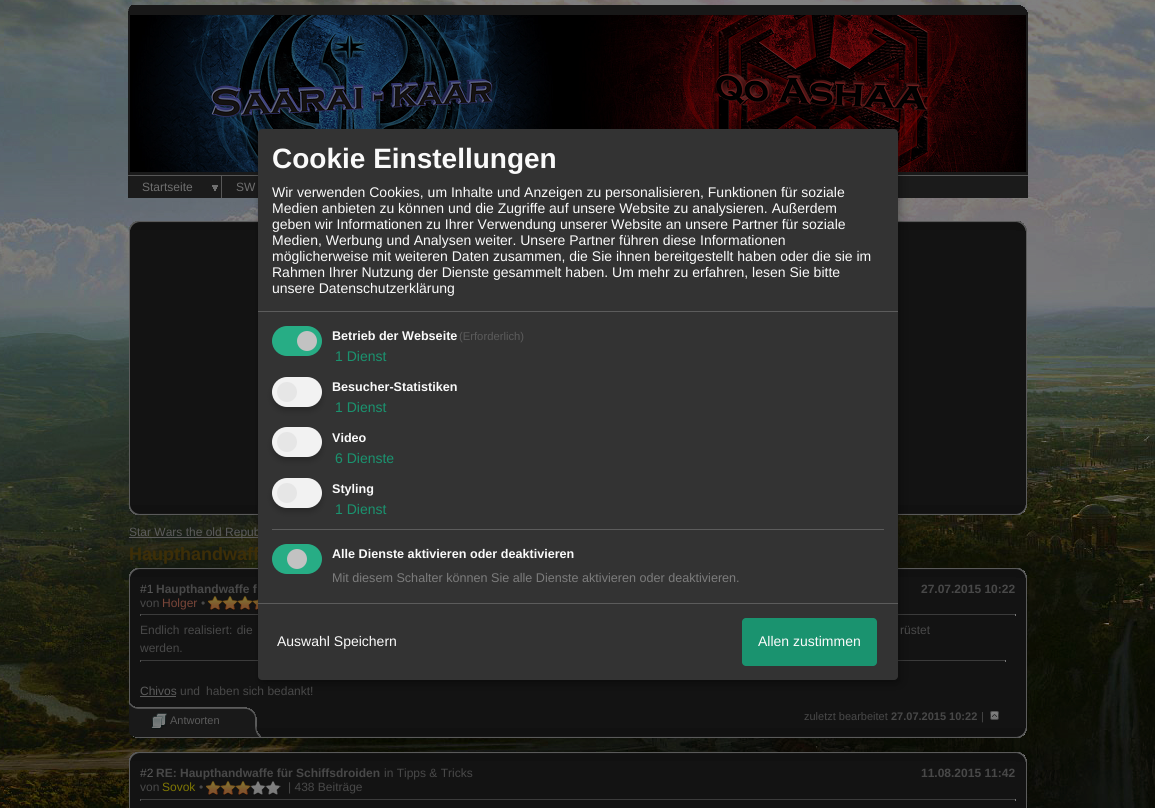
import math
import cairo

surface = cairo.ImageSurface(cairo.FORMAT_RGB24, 1155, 808)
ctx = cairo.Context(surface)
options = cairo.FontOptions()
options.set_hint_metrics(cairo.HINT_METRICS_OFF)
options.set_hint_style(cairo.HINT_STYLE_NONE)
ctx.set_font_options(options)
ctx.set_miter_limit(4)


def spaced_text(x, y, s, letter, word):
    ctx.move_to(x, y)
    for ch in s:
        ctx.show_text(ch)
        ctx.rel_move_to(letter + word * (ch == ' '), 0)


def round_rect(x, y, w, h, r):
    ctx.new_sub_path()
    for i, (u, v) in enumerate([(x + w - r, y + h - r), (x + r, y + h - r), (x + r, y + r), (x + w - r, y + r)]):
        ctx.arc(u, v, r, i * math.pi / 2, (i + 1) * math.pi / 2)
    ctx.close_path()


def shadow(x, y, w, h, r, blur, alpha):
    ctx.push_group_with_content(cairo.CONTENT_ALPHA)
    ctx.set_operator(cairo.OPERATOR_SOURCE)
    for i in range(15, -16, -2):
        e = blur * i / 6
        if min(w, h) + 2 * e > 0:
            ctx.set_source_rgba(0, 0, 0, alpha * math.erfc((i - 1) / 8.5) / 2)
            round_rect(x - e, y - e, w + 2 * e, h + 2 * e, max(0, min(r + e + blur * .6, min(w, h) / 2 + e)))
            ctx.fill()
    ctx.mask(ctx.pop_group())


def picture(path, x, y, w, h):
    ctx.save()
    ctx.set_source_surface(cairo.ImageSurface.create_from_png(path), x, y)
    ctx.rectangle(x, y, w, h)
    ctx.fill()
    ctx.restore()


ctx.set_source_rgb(1, 1, 1)
ctx.paint()
picture("img1.png", 0, 0, 1155, 808)
ctx.set_source_rgb(0.102, 0.102, 0.102)
ctx.rectangle(128, 15, 900, 160)
ctx.fill()
picture("img4.png", 130, 15, 896, 157)
ctx.set_source_rgb(0.106, 0.106, 0.106)
ctx.rectangle(128, 176, 900, 22)
ctx.fill()
ctx.set_source_rgb(0.341, 0.341, 0.341)
ctx.rectangle(128, 175, 900, 1)
ctx.fill()
picture("img6.png", 129, 221, 887, 9)
ctx.set_source_rgb(0.078, 0.078, 0.078)
ctx.rectangle(130, 230, 896, 275)
ctx.fill()
ctx.set_source_rgb(0.361, 0.361, 0.361)
ctx.rectangle(129, 230, 1, 276)
ctx.fill()
picture("img8.png", 129, 505, 887, 10)
ctx.set_source_rgb(0.357, 0.357, 0.357)
ctx.rectangle(129, 537, 129, 1)
ctx.fill()
picture("img10.png", 129, 568, 887, 9)
ctx.set_source_rgb(0.078, 0.078, 0.078)
ctx.rectangle(130, 577, 896, 151)
ctx.fill()
picture("img12.png", 208, 596, 50, 15)
ctx.set_source_rgb(0.231, 0.231, 0.231)
ctx.rectangle(140, 614, 876, 1)
ctx.fill()
ctx.rectangle(140, 660, 866, 1)
ctx.fill()
ctx.set_source_rgb(0, 0, 0)
shadow(263, 134, 640, 551, 4, 5, 0.19)
shadow(258, 133, 640, 551, 4, 3, 0.2)
ctx.select_font_face("Liberation Sans")
ctx.set_font_size(12)
ctx.set_source_rgb(0.357, 0.357, 0.357)
ctx.move_to(129, 536)
ctx.show_text("Star Wars the old Repub")
ctx.select_font_face("Liberation Sans", cairo.FONT_SLANT_NORMAL, cairo.FONT_WEIGHT_BOLD)
ctx.set_font_size(18)
ctx.set_source_rgb(0.239, 0.18, 0.031)
ctx.move_to(129, 560)
ctx.show_text("Haupthandwaff")
ctx.set_source_rgb(0.2, 0.2, 0.2)
round_rect(258, 129, 640, 551, 4)
ctx.fill()
ctx.set_source_rgb(0.361, 0.361, 0.361)
ctx.rectangle(258, 311, 640, 1)
ctx.fill()
ctx.set_font_size(28)
ctx.set_source_rgb(0.98, 0.98, 0.98)
ctx.move_to(272, 168)
ctx.show_text("Cookie Einstellungen")
ctx.select_font_face("Liberation Sans")
ctx.set_font_size(14)
ctx.move_to(272, 197)
ctx.show_text("Wir verwenden Cookies, um Inhalte und Anzeigen zu personalisieren, Funktionen für soziale")
ctx.move_to(272, 213)
ctx.show_text("Medien anbieten zu können und die Zugriffe auf unsere Website zu analysieren. Außerdem")
ctx.move_to(272, 229)
ctx.show_text("geben wir Informationen zu Ihrer Verwendung unserer Website an unsere Partner für soziale")
ctx.move_to(272, 245)
ctx.show_text("Medien, Werbung und Analysen weiter. Unsere Partner führen diese Informationen")
ctx.move_to(272, 261)
ctx.show_text("möglicherweise mit weiteren Daten zusammen, die Sie ihnen bereitgestellt haben oder die sie im")
ctx.move_to(272, 277)
ctx.show_text("Rahmen Ihrer Nutzung der Dienste gesammelt haben. Um mehr zu erfahren, lesen Sie bitte")
ctx.move_to(272, 293)
ctx.show_text("unsere Datenschutzerklärung")
ctx.set_source_rgb(0.153, 0.678, 0.522)
round_rect(272, 326, 50, 30, 15)
ctx.fill()
ctx.set_source_rgb(0.761, 0.761, 0.761)
ctx.arc(307, 341, 10, 0, 2 * math.pi)
ctx.fill()
ctx.select_font_face("Liberation Sans", cairo.FONT_SLANT_NORMAL, cairo.FONT_WEIGHT_BOLD)
ctx.set_font_size(12.6)
ctx.set_source_rgb(0.98, 0.98, 0.98)
ctx.move_to(332, 340)
ctx.show_text("Betrieb der Webseite")
ctx.select_font_face("Liberation Sans")
ctx.set_font_size(11.25)
ctx.set_source_rgb(0.357, 0.357, 0.357)
ctx.move_to(459, 340)
ctx.show_text("(Erforderlich)")
ctx.set_font_size(14)
ctx.set_source_rgb(0.102, 0.576, 0.435)
ctx.move_to(335, 361)
ctx.show_text("1 Dienst")
ctx.set_source_rgb(0, 0, 0)
shadow(272, 381, 50, 30, 15, 3, 0.2)
ctx.set_source_rgb(0.949, 0.949, 0.949)
round_rect(272, 377, 50, 30, 15)
ctx.fill()
ctx.set_source_rgb(0.902, 0.902, 0.902)
ctx.arc(287, 392, 10, 0, 2 * math.pi)
ctx.fill()
ctx.select_font_face("Liberation Sans", cairo.FONT_SLANT_NORMAL, cairo.FONT_WEIGHT_BOLD)
ctx.set_font_size(12.6)
ctx.set_source_rgb(0.98, 0.98, 0.98)
ctx.move_to(332, 391)
ctx.show_text("Besucher-Statistiken")
ctx.select_font_face("Liberation Sans")
ctx.set_font_size(14)
ctx.set_source_rgb(0.102, 0.576, 0.435)
ctx.move_to(335, 412)
ctx.show_text("1 Dienst")
ctx.set_source_rgb(0, 0, 0)
shadow(272, 431, 50, 30, 15, 3, 0.2)
ctx.set_source_rgb(0.949, 0.949, 0.949)
round_rect(272, 427, 50, 30, 15)
ctx.fill()
ctx.set_source_rgb(0.902, 0.902, 0.902)
ctx.arc(287, 442, 10, 0, 2 * math.pi)
ctx.fill()
ctx.select_font_face("Liberation Sans", cairo.FONT_SLANT_NORMAL, cairo.FONT_WEIGHT_BOLD)
ctx.set_font_size(12.6)
ctx.set_source_rgb(0.98, 0.98, 0.98)
ctx.move_to(332, 442)
ctx.show_text("Video")
ctx.select_font_face("Liberation Sans")
ctx.set_font_size(14)
ctx.set_source_rgb(0.102, 0.576, 0.435)
ctx.move_to(335, 463)
ctx.show_text("6 Dienste")
ctx.set_source_rgb(0, 0, 0)
shadow(272, 482, 50, 30, 15, 3, 0.2)
ctx.set_source_rgb(0.949, 0.949, 0.949)
round_rect(272, 478, 50, 30, 15)
ctx.fill()
ctx.set_source_rgb(0.902, 0.902, 0.902)
ctx.arc(287, 493, 10, 0, 2 * math.pi)
ctx.fill()
ctx.select_font_face("Liberation Sans", cairo.FONT_SLANT_NORMAL, cairo.FONT_WEIGHT_BOLD)
ctx.set_font_size(12.6)
ctx.set_source_rgb(0.98, 0.98, 0.98)
ctx.move_to(332, 493)
ctx.show_text("Styling")
ctx.select_font_face("Liberation Sans")
ctx.set_font_size(14)
ctx.set_source_rgb(0.102, 0.576, 0.435)
ctx.move_to(335, 514)
ctx.show_text("1 Dienst")
ctx.set_source_rgb(0.361, 0.361, 0.361)
ctx.rectangle(272, 529, 612, 1)
ctx.fill()
ctx.set_source_rgb(0.153, 0.678, 0.522)
round_rect(272, 544, 50, 30, 15)
ctx.fill()
ctx.set_source_rgb(0.761, 0.761, 0.761)
ctx.arc(297, 559, 10, 0, 2 * math.pi)
ctx.fill()
ctx.select_font_face("Liberation Sans", cairo.FONT_SLANT_NORMAL, cairo.FONT_WEIGHT_BOLD)
ctx.set_font_size(12.6)
ctx.set_source_rgb(0.98, 0.98, 0.98)
ctx.move_to(332, 558)
ctx.show_text("Alle Dienste aktivieren oder deaktivieren")
ctx.select_font_face("Liberation Sans")
ctx.set_source_rgb(0.486, 0.486, 0.486)
ctx.move_to(332, 582)
ctx.show_text("Mit diesem Schalter können Sie alle Dienste aktivieren oder deaktivieren.")
ctx.set_source_rgb(0.361, 0.361, 0.361)
ctx.rectangle(258, 603, 640, 1)
ctx.fill()
ctx.set_font_size(14)
ctx.set_source_rgb(0.98, 0.98, 0.98)
ctx.move_to(277, 646)
ctx.show_text("Auswahl Speichern")
ctx.set_source_rgb(0.102, 0.576, 0.435)
round_rect(742, 618, 135, 48, 4)
ctx.fill()
ctx.set_source_rgb(0.98, 0.98, 0.98)
ctx.move_to(758, 646)
ctx.show_text("Allen zustimmen")
picture("img2.png", 128, 5, 889, 10)
picture("img3.png", 1017, 5, 11, 10)
ctx.set_source_rgb(0.341, 0.341, 0.341)
ctx.rectangle(221, 176, 1, 22)
ctx.fill()
ctx.set_font_size(12)
ctx.set_source_rgb(0.435, 0.435, 0.435)
ctx.move_to(142, 191)
ctx.show_text("Startseite")
picture("img5.png", 212, 185, 6, 6)
ctx.move_to(236, 191)
ctx.show_text("SW")
ctx.set_source_rgb(0.361, 0.361, 0.361)
ctx.rectangle(1026, 230, 1, 276)
ctx.fill()
picture("img7.png", 1016, 221, 11, 10)
picture("img9.png", 1016, 505, 11, 10)
ctx.rectangle(1026, 577, 1, 152)
ctx.fill()
picture("img11.png", 1016, 568, 11, 10)
ctx.rectangle(129, 577, 1, 126)
ctx.fill()
ctx.set_source_rgb(0.357, 0.357, 0.357)
ctx.move_to(140, 593)
ctx.show_text("#1")
ctx.select_font_face("Liberation Sans", cairo.FONT_SLANT_NORMAL, cairo.FONT_WEIGHT_BOLD)
ctx.set_source_rgb(0.282, 0.282, 0.282)
ctx.move_to(156, 593)
ctx.show_text("Haupthandwaffe f")
ctx.move_to(921, 593)
ctx.show_text("27.07.2015 10:22")
ctx.select_font_face("Liberation Sans")
ctx.move_to(140, 607)
ctx.show_text("von")
ctx.set_source_rgb(0.475, 0.271, 0.22)
ctx.move_to(162, 607)
ctx.show_text("Holger")
ctx.set_source_rgb(0.282, 0.282, 0.282)
ctx.move_to(201, 607)
ctx.show_text("•")
ctx.set_source_rgb(0.467, 0.467, 0.467)
ctx.rectangle(1015, 614, 1, 2)
ctx.fill()
ctx.set_source_rgb(0.314, 0.314, 0.314)
ctx.rectangle(140, 614, 1, 2)
ctx.fill()
ctx.set_source_rgb(0.282, 0.282, 0.282)
spaced_text(140, 634, "Endlich realisiert: die", 0, 1)
spaced_text(900, 634, "rüstet", 0, 1)
ctx.move_to(140, 652)
ctx.show_text("werden.")
ctx.set_source_rgb(0.467, 0.467, 0.467)
ctx.rectangle(1005, 660, 1, 2)
ctx.fill()
ctx.set_source_rgb(0.314, 0.314, 0.314)
ctx.rectangle(140, 660, 1, 2)
ctx.fill()
ctx.set_source_rgb(0.357, 0.357, 0.357)
ctx.move_to(140, 695)
ctx.show_text("Chivos")
ctx.rectangle(140, 696, 36, 1)
ctx.fill()
ctx.set_source_rgb(0.282, 0.282, 0.282)
ctx.move_to(180, 695)
ctx.show_text("und")
ctx.move_to(206, 695)
ctx.show_text("haben sich bedankt!")
picture("img16.png", 133, 728, 883, 10)
picture("img13.png", 129, 703, 132, 34)
picture("img14.png", 151, 713, 16, 16)
ctx.set_font_size(11)
ctx.set_source_rgb(0.357, 0.357, 0.357)
ctx.move_to(170, 724)
ctx.show_text("Antworten")
ctx.set_source_rgb(0.282, 0.282, 0.282)
ctx.move_to(804, 720)
ctx.show_text("zuletzt bearbeitet")
ctx.select_font_face("Liberation Sans", cairo.FONT_SLANT_NORMAL, cairo.FONT_WEIGHT_BOLD)
ctx.move_to(891, 720)
ctx.show_text("27.07.2015 10:22")
ctx.select_font_face("Liberation Sans")
ctx.move_to(981, 720)
ctx.show_text("|")
picture("img15.png", 990, 711, 9, 9)
picture("img17.png", 1016, 728, 11, 10)
picture("img18.png", 129, 752, 887, 9)
ctx.set_source_rgb(0.078, 0.078, 0.078)
ctx.rectangle(130, 761, 896, 47)
ctx.fill()
ctx.set_source_rgb(0.361, 0.361, 0.361)
ctx.rectangle(1026, 761, 1, 47)
ctx.fill()
picture("img19.png", 1016, 752, 11, 10)
ctx.rectangle(129, 761, 1, 47)
ctx.fill()
ctx.set_font_size(12)
ctx.set_source_rgb(0.357, 0.357, 0.357)
ctx.move_to(140, 777)
ctx.show_text("#2")
ctx.select_font_face("Liberation Sans", cairo.FONT_SLANT_NORMAL, cairo.FONT_WEIGHT_BOLD)
ctx.set_source_rgb(0.282, 0.282, 0.282)
ctx.move_to(156, 777)
ctx.show_text("RE: Haupthandwaffe für Schiffsdroiden")
ctx.select_font_face("Liberation Sans")
ctx.move_to(384, 777)
ctx.show_text("in Tipps & Tricks")
ctx.select_font_face("Liberation Sans", cairo.FONT_SLANT_NORMAL, cairo.FONT_WEIGHT_BOLD)
ctx.move_to(921, 777)
ctx.show_text("11.08.2015 11:42")
ctx.select_font_face("Liberation Sans")
ctx.move_to(140, 791)
ctx.show_text("von")
ctx.set_source_rgb(0.494, 0.463, 0.012)
ctx.move_to(162, 791)
ctx.show_text("Sovok")
ctx.set_source_rgb(0.282, 0.282, 0.282)
ctx.move_to(199, 791)
ctx.show_text("•")
picture("img20.png", 206, 781, 75, 15)
ctx.move_to(288, 791)
ctx.show_text("| 438 Beiträge")
ctx.set_source_rgb(0.231, 0.231, 0.231)
ctx.rectangle(140, 799, 876, 1)
ctx.fill()
ctx.set_source_rgb(0.467, 0.467, 0.467)
ctx.rectangle(1015, 799, 1, 2)
ctx.fill()
ctx.set_source_rgb(0.314, 0.314, 0.314)
ctx.rectangle(140, 799, 1, 2)
ctx.fill()
surface.write_to_png("page.png")
